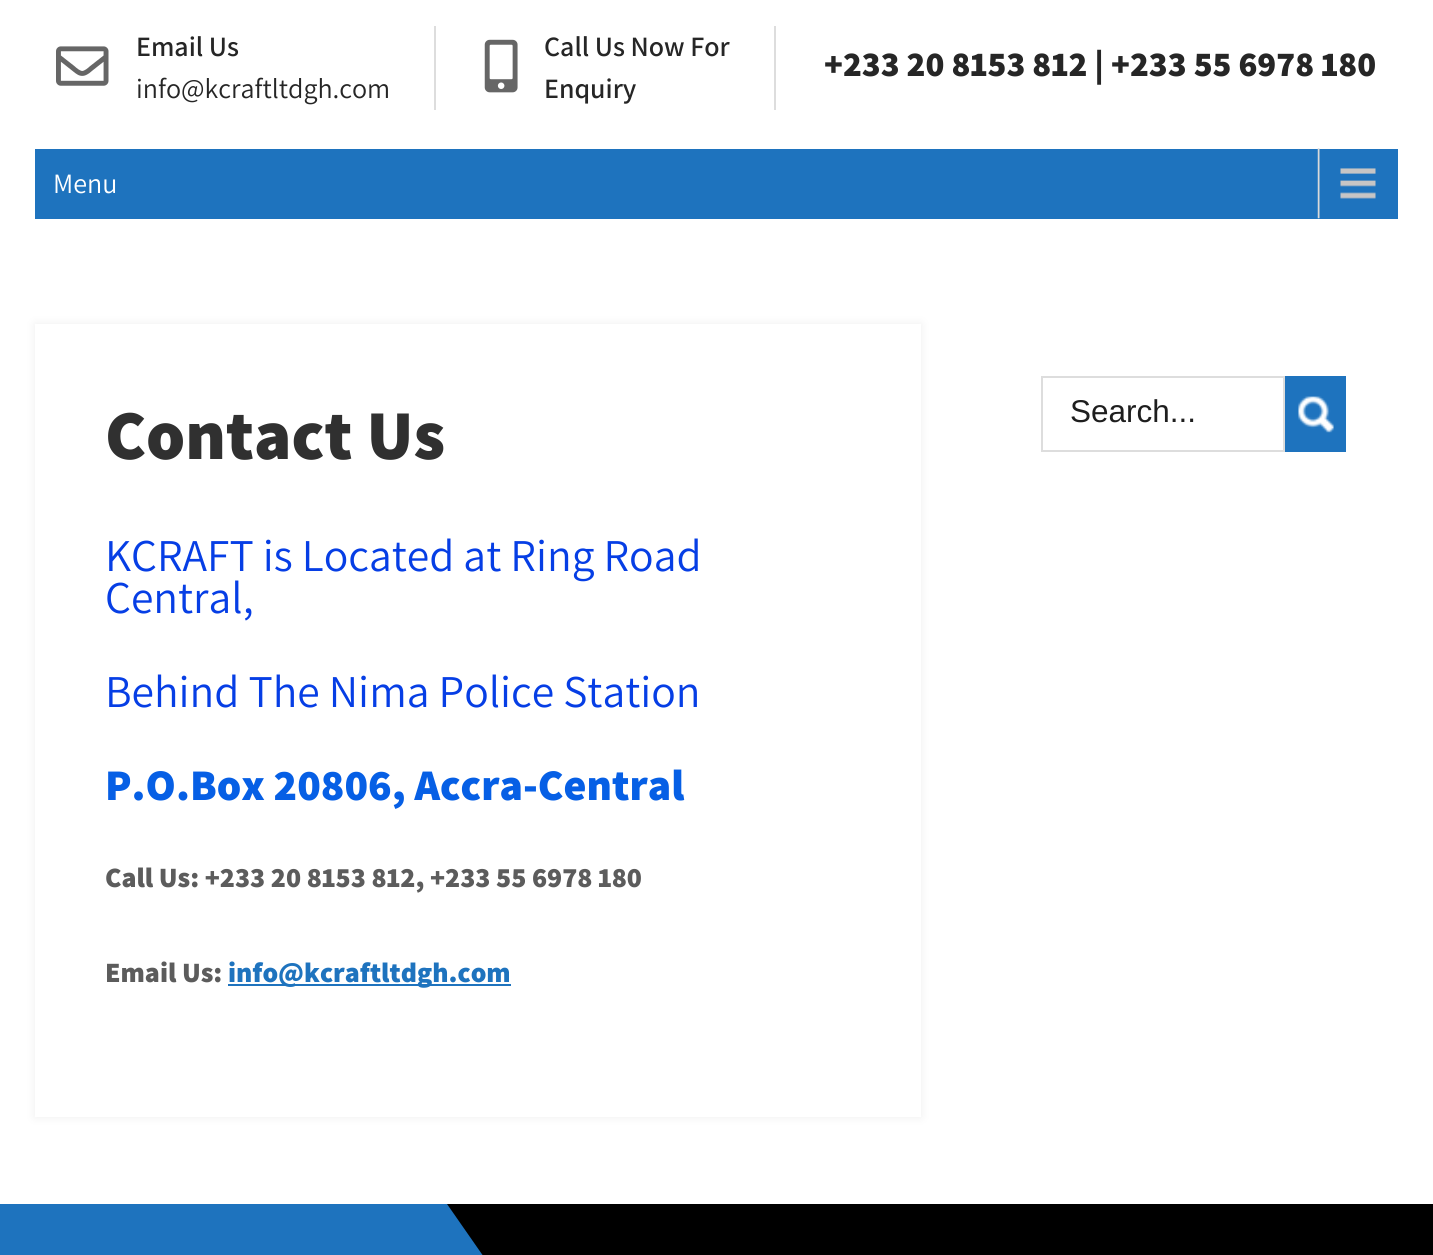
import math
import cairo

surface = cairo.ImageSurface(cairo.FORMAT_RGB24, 1433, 1255)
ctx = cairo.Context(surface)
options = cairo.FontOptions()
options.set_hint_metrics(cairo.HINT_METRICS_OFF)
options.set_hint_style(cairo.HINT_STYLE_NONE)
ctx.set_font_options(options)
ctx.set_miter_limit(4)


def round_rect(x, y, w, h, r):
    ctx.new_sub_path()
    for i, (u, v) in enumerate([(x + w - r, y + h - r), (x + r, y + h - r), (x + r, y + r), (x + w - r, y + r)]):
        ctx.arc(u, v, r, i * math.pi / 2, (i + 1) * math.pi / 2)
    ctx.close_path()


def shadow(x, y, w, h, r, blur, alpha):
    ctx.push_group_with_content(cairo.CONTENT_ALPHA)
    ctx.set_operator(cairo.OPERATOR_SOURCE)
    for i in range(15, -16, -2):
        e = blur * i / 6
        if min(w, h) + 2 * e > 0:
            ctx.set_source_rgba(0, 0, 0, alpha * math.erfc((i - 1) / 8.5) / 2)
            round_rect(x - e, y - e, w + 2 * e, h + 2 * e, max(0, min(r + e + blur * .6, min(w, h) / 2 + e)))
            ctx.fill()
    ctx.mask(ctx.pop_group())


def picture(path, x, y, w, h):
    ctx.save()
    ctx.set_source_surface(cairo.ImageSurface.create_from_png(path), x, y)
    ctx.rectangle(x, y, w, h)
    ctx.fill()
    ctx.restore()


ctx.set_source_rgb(1, 1, 1)
ctx.paint()
ctx.set_source_rgb(0.867, 0.867, 0.867)
ctx.rectangle(434, 26, 2, 84)
ctx.fill()
picture("img1.png", 56, 46, 53, 40)
ctx.select_font_face("Assistant SemiBold")
ctx.set_font_size(28)
ctx.set_source_rgb(0.149, 0.149, 0.149)
ctx.move_to(136, 56)
ctx.show_text("Email Us")
ctx.select_font_face("Assistant")
ctx.move_to(136, 98)
ctx.show_text("info@kcraftltdgh.com")
ctx.set_source_rgb(0.867, 0.867, 0.867)
ctx.rectangle(774, 26, 2, 84)
ctx.fill()
picture("img2.png", 484, 39, 34, 54)
ctx.select_font_face("Assistant SemiBold")
ctx.set_source_rgb(0.149, 0.149, 0.149)
ctx.move_to(544, 56)
ctx.show_text("Call Us Now For")
ctx.move_to(544, 98)
ctx.show_text("Enquiry")
ctx.select_font_face("Assistant ExtraBold")
ctx.set_font_size(35)
ctx.move_to(824, 76)
ctx.show_text("+233 20 8153 812 | +233 55 6978 180")
ctx.set_source_rgb(0.118, 0.451, 0.745)
ctx.rectangle(35, 149, 1363, 70)
ctx.fill()
picture("img3.png", 1317, 148, 59, 71)
ctx.select_font_face("Assistant")
ctx.set_font_size(28)
ctx.set_source_rgb(1, 1, 1)
ctx.move_to(53, 193)
ctx.show_text("Menu")
ctx.set_source_rgb(0.933, 0.933, 0.933)
shadow(35, 324, 886, 793, 0, 4.5, 1)
ctx.set_source_rgb(1, 1, 1)
ctx.rectangle(35, 324, 886, 793)
ctx.fill()
ctx.select_font_face("Assistant ExtraBold")
ctx.set_font_size(70)
ctx.set_source_rgb(0.188, 0.188, 0.188)
ctx.move_to(105, 459)
ctx.show_text("Contact Us")
ctx.select_font_face("Assistant")
ctx.set_font_size(45.5)
ctx.set_source_rgb(0.024, 0.243, 0.898)
ctx.move_to(105, 571)
ctx.show_text("KCRAFT is Located at Ring Road")
ctx.move_to(105, 613)
ctx.show_text("Central,")
ctx.move_to(105, 707)
ctx.show_text("Behind The Nima Police Station")
ctx.select_font_face("Assistant ExtraBold")
ctx.set_font_size(43.75)
ctx.set_source_rgb(0.024, 0.373, 0.898)
ctx.move_to(105, 800)
ctx.show_text("P.O.Box 20806, Accra-Central")
ctx.set_font_size(28)
ctx.set_source_rgb(0.361, 0.361, 0.361)
ctx.move_to(105, 887)
ctx.show_text("Call Us: +233 20 8153 812, +233 55 6978 180")
ctx.move_to(105, 982)
ctx.show_text("Email Us:")
ctx.set_source_rgb(0.118, 0.451, 0.745)
ctx.rectangle(228, 984, 283, 2)
ctx.fill()
ctx.move_to(228, 982)
ctx.show_text("info@kcraftltdgh.com")
ctx.rectangle(1042, 377, 242, 74)
ctx.set_source_rgb(0.867, 0.867, 0.867)
ctx.stroke()
ctx.select_font_face("Liberation Sans")
ctx.set_font_size(31.5)
ctx.set_source_rgb(0.118, 0.118, 0.118)
ctx.move_to(1070, 422)
ctx.show_text("Search...")
ctx.set_source_rgb(0.118, 0.451, 0.745)
ctx.rectangle(1285, 376, 61, 76)
ctx.fill()
picture("img4.png", 1298, 396, 36, 37)
ctx.set_source_rgb(0, 0, 0)
ctx.rectangle(447, 1204, 986, 51)
ctx.fill()
ctx.set_source_rgb(0.118, 0.451, 0.745)
ctx.new_path()
ctx.move_to(-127, 1204)
ctx.line_to(447, 1204)
ctx.line_to(525, 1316)
ctx.line_to(-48, 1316)
ctx.close_path()
ctx.fill()
surface.write_to_png("page.png")
